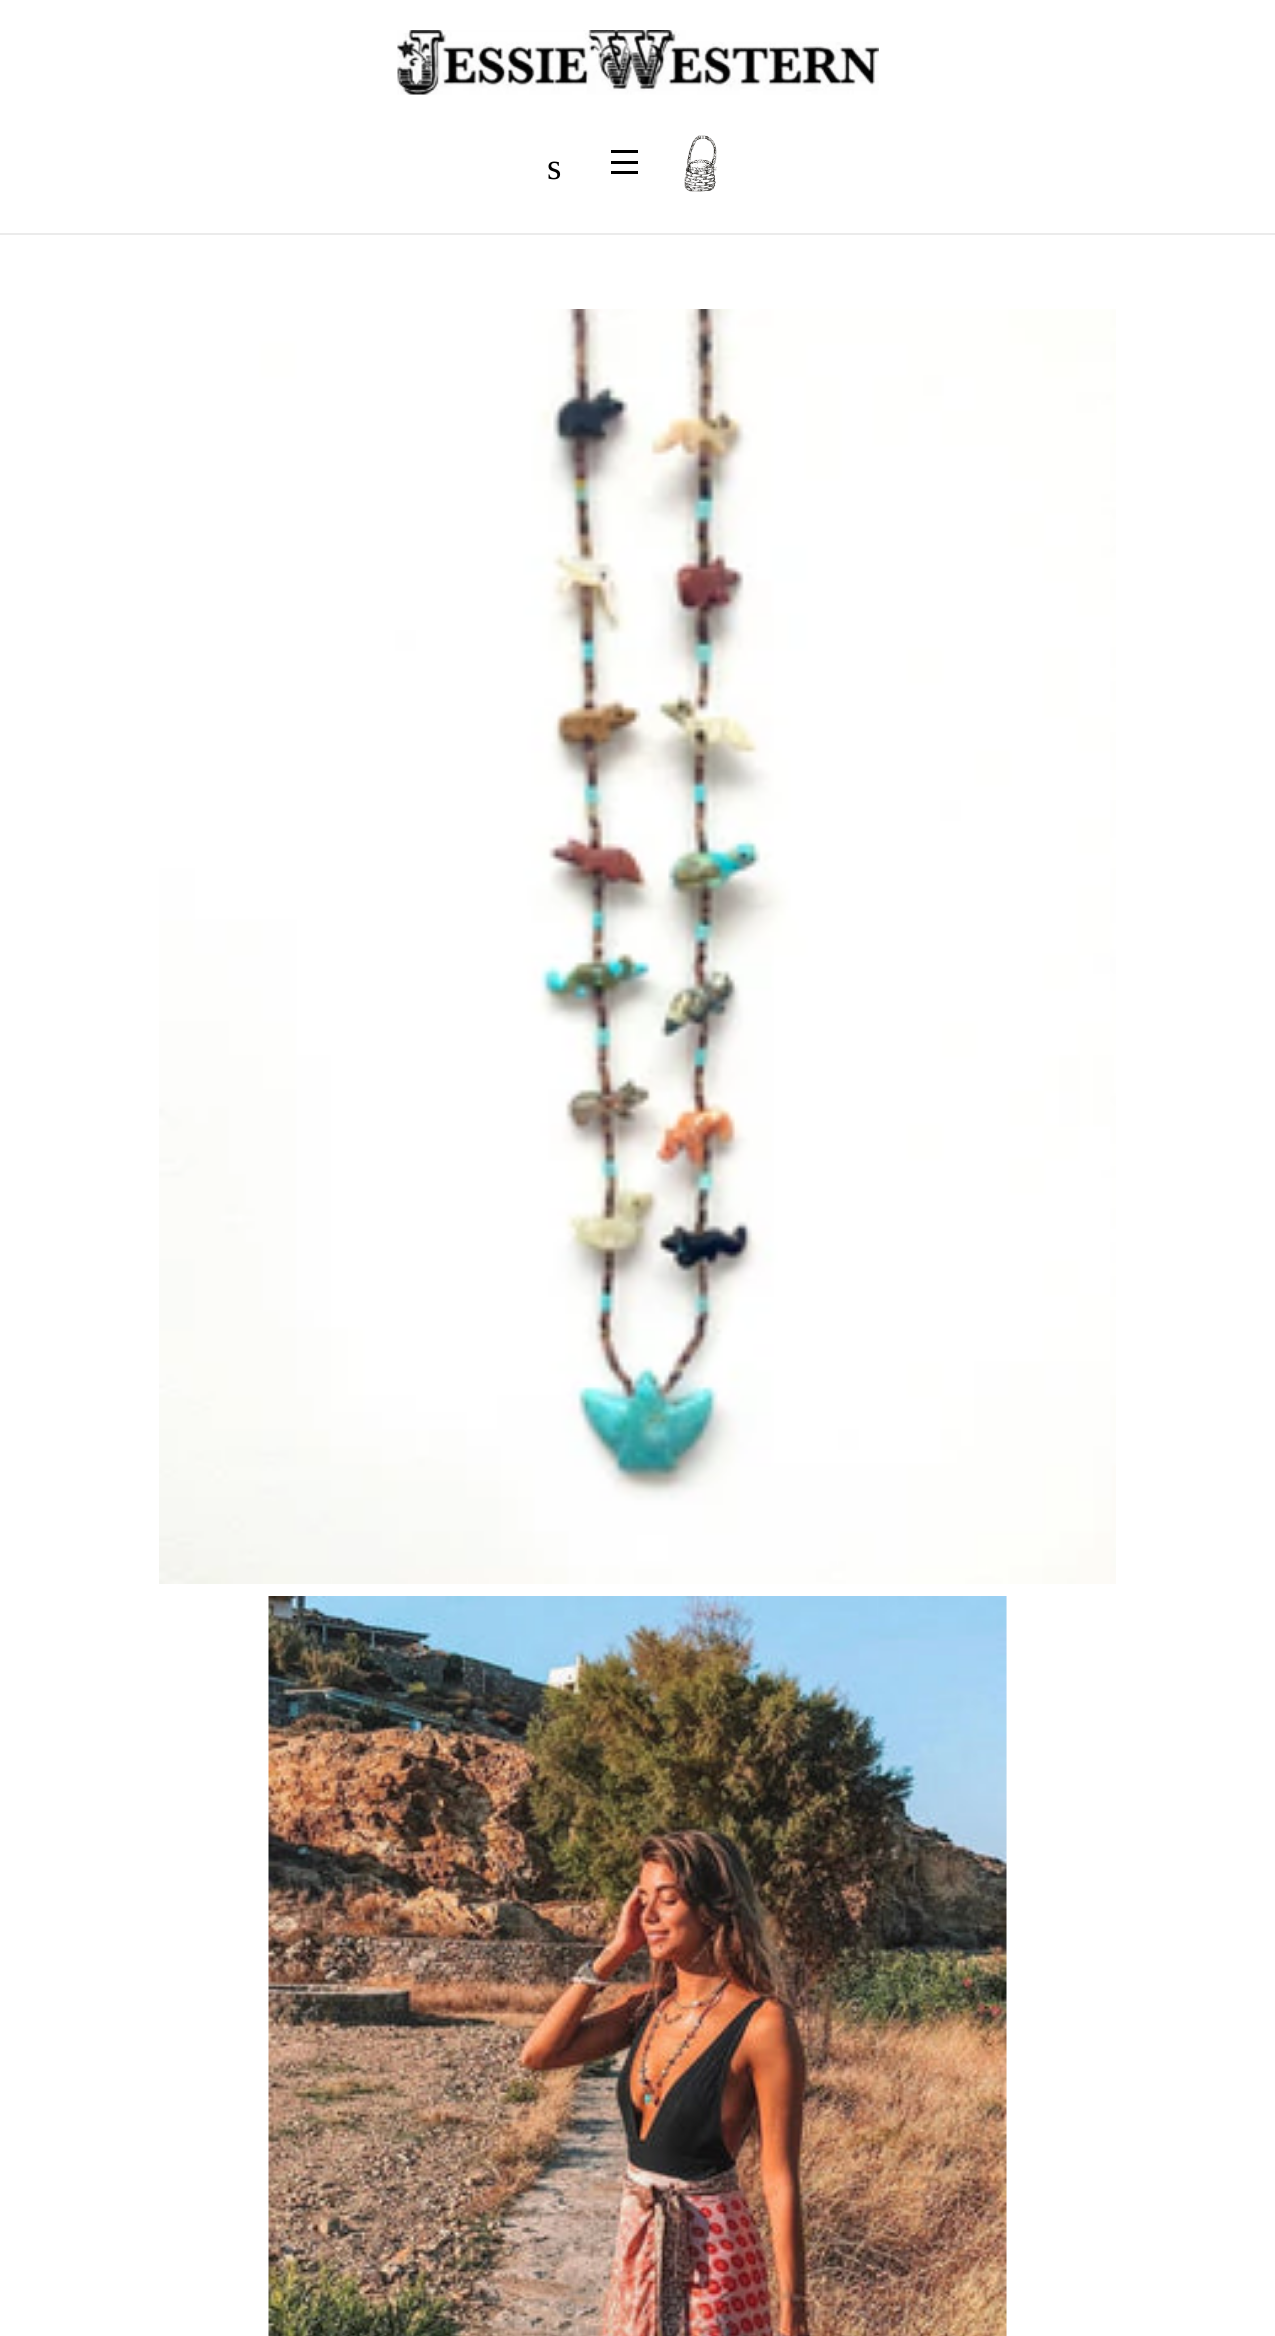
import math
import cairo

surface = cairo.ImageSurface(cairo.FORMAT_RGB24, 1275, 2336)
ctx = cairo.Context(surface)
options = cairo.FontOptions()
options.set_hint_metrics(cairo.HINT_METRICS_OFF)
options.set_hint_style(cairo.HINT_STYLE_NONE)
ctx.set_font_options(options)
ctx.set_miter_limit(4)


def picture(path, x, y, w, h):
    ctx.save()
    ctx.set_source_surface(cairo.ImageSurface.create_from_png(path), x, y)
    ctx.rectangle(x, y, w, h)
    ctx.fill()
    ctx.restore()


ctx.set_source_rgb(1, 1, 1)
ctx.paint()
ctx.set_source_rgb(0.918, 0.918, 0.918)
ctx.rectangle(0, 233, 1275, 2)
ctx.fill()
picture("img1.png", 397, 30, 482, 65)
ctx.select_font_face("Liberation Serif")
ctx.set_font_size(37)
ctx.set_source_rgb(0, 0, 0)
ctx.move_to(547, 179)
ctx.show_text("s")
ctx.rectangle(611, 150, 27, 3)
ctx.fill()
ctx.rectangle(611, 161, 27, 3)
ctx.fill()
ctx.rectangle(611, 171, 27, 3)
ctx.fill()
picture("img2.png", 684, 135, 33, 57)
picture("img3.png", 159, 309, 957, 1275)
ctx.set_source_rgb(0.969, 0.969, 0.969)
ctx.rectangle(1006, 1596, 1, 740)
ctx.fill()
picture("img4.png", 268, 1596, 739, 740)
surface.write_to_png("page.png")
